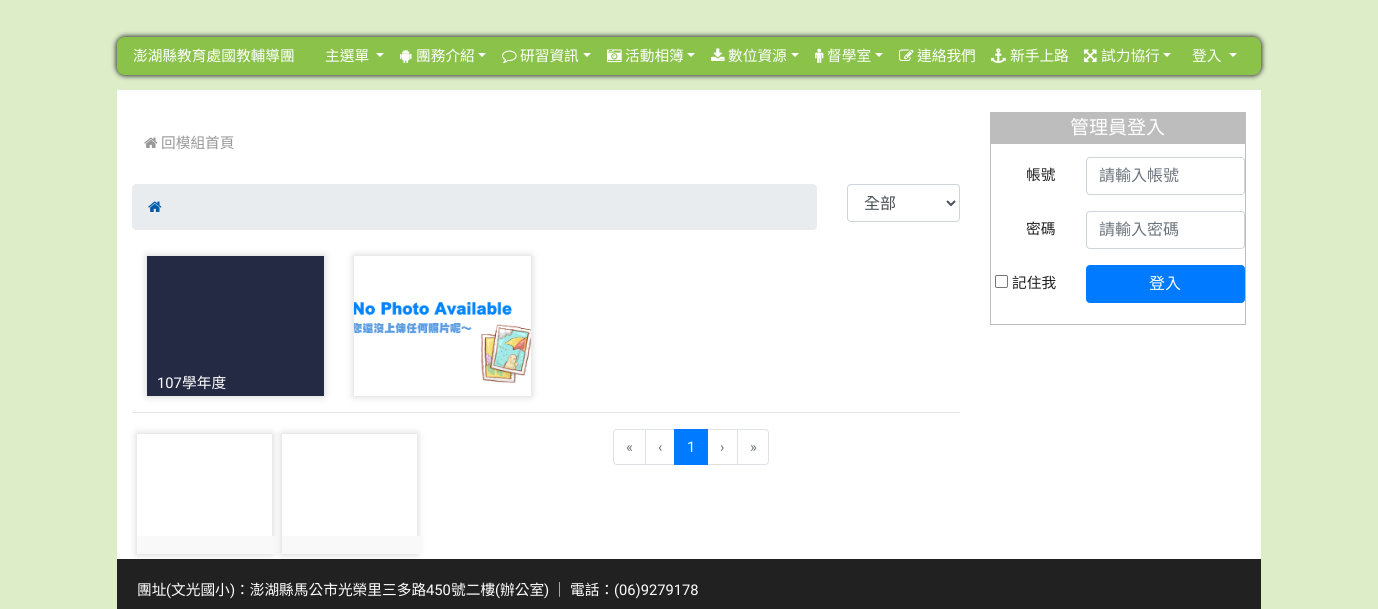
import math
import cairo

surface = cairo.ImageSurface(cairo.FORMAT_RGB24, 1378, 609)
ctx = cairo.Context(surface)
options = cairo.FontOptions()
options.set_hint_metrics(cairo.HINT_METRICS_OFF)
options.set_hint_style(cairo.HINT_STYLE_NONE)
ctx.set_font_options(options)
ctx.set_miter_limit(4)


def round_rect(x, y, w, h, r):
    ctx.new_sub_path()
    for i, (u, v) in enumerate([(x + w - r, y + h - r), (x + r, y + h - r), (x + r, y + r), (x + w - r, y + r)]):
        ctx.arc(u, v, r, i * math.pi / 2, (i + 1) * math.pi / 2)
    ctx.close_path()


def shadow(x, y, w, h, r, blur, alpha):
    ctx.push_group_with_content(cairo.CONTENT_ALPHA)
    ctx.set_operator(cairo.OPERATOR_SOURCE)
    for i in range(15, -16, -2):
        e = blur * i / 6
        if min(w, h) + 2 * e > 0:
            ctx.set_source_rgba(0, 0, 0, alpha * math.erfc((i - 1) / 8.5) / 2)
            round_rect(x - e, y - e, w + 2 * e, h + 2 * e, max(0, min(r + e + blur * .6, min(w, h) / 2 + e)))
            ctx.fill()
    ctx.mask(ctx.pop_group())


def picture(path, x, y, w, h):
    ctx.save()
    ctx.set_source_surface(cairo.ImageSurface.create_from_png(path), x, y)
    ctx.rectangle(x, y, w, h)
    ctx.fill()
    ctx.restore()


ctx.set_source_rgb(0.863, 0.929, 0.784)
ctx.paint()
ctx.set_source_rgb(0.2, 0.2, 0.2)
shadow(116, 36, 1146, 40, 9, 2.5, 1)
ctx.set_source_rgb(0.545, 0.765, 0.29)
round_rect(117, 37, 1144, 38, 8)
ctx.fill()
ctx.select_font_face("Noto Sans CJK TC")
ctx.set_font_size(14.7)
ctx.set_source_rgb(1, 1, 1)
ctx.move_to(133, 61)
ctx.show_text("澎湖縣教育處國教輔導團")
ctx.move_to(325, 61)
ctx.show_text("主選單")
ctx.new_path()
ctx.move_to(376, 53)
ctx.line_to(384, 53)
ctx.line_to(380, 57)
ctx.close_path()
ctx.fill()
picture("img1.png", 400, 49, 12, 14)
ctx.move_to(416, 61)
ctx.show_text("團務介紹")
ctx.new_path()
ctx.move_to(478, 53)
ctx.line_to(486, 53)
ctx.line_to(482, 57)
ctx.close_path()
ctx.fill()
picture("img2.png", 502, 50, 15, 14)
ctx.move_to(520, 61)
ctx.show_text("研習資訊")
ctx.new_path()
ctx.move_to(583, 53)
ctx.line_to(591, 53)
ctx.line_to(587, 57)
ctx.close_path()
ctx.fill()
picture("img3.png", 607, 49, 15, 14)
ctx.move_to(625, 61)
ctx.show_text("活動相簿")
ctx.new_path()
ctx.move_to(687, 53)
ctx.line_to(695, 53)
ctx.line_to(691, 57)
ctx.close_path()
ctx.fill()
picture("img4.png", 711, 48, 14, 13)
ctx.move_to(728, 61)
ctx.show_text("數位資源")
ctx.new_path()
ctx.move_to(791, 53)
ctx.line_to(799, 53)
ctx.line_to(795, 57)
ctx.close_path()
ctx.fill()
picture("img5.png", 815, 48, 9, 15)
ctx.move_to(827, 61)
ctx.show_text("督學室")
ctx.new_path()
ctx.move_to(875, 53)
ctx.line_to(883, 53)
ctx.line_to(879, 57)
ctx.close_path()
ctx.fill()
picture("img6.png", 899, 49, 15, 12)
ctx.move_to(917, 61)
ctx.show_text("連絡我們")
picture("img7.png", 991, 48, 15, 15)
ctx.move_to(1010, 61)
ctx.show_text("新手上路")
picture("img8.png", 1084, 49, 13, 14)
ctx.move_to(1101, 61)
ctx.show_text("試力協行")
ctx.new_path()
ctx.move_to(1163, 53)
ctx.line_to(1171, 53)
ctx.line_to(1167, 57)
ctx.close_path()
ctx.fill()
ctx.move_to(1192, 61)
ctx.show_text("登入")
ctx.new_path()
ctx.move_to(1229, 53)
ctx.line_to(1237, 53)
ctx.line_to(1233, 57)
ctx.close_path()
ctx.fill()
ctx.rectangle(117, 90, 1144, 469)
ctx.fill()
picture("img9.png", 144, 137, 14, 11)
ctx.set_source_rgb(0.6, 0.6, 0.6)
ctx.move_to(161, 148)
ctx.show_text("回模組首頁")
ctx.set_source_rgb(0.914, 0.925, 0.937)
round_rect(132, 184, 685, 46, 4)
ctx.fill()
picture("img10.png", 148, 201, 14, 11)
round_rect(847.5, 184.5, 112, 37, 3.5)
ctx.set_source_rgb(0.808, 0.831, 0.855)
ctx.set_line_width(1)
ctx.stroke()
ctx.new_path()
ctx.move_to(947, 201)
ctx.line_to(951, 205)
ctx.line_to(955, 201)
ctx.set_source_rgb(0.286, 0.314, 0.341)
ctx.set_line_width(2)
ctx.stroke()
ctx.set_font_size(16)
ctx.move_to(864, 209)
ctx.show_text("全部")
ctx.set_source_rgb(0.816, 0.816, 0.816)
shadow(147, 256, 177, 140, 0, 4, 1)
ctx.set_source_rgb(0.145, 0.165, 0.267)
ctx.rectangle(147, 256, 177, 140)
ctx.fill()
ctx.select_font_face("Roboto")
ctx.set_font_size(14.7)
ctx.set_source_rgb(1, 1, 1)
ctx.move_to(157, 388)
ctx.show_text("107")
ctx.select_font_face("Noto Sans CJK TC")
ctx.move_to(182, 388)
ctx.show_text("學年度")
ctx.set_source_rgb(0.816, 0.816, 0.816)
shadow(354, 256, 177, 140, 0, 4, 1)
picture("img11.png", 354, 256, 177, 140)
ctx.set_source_rgb(0.902, 0.902, 0.902)
ctx.rectangle(132, 412, 828, 1)
ctx.fill()
ctx.save()
ctx.set_fill_rule(cairo.FILL_RULE_EVEN_ODD)
ctx.new_path()
ctx.move_to(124, 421)
ctx.line_to(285, 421)
ctx.line_to(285, 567)
ctx.line_to(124, 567)
ctx.close_path()
ctx.move_to(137, 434)
ctx.line_to(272, 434)
ctx.line_to(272, 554)
ctx.line_to(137, 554)
ctx.close_path()
ctx.clip()
ctx.set_source_rgb(0.816, 0.816, 0.816)
shadow(137, 434, 135, 120, 0, 4, 1)
ctx.restore()
ctx.set_source_rgb(0.976, 0.976, 0.976)
ctx.rectangle(137, 536, 140, 18)
ctx.fill()
ctx.save()
ctx.set_fill_rule(cairo.FILL_RULE_EVEN_ODD)
ctx.new_path()
ctx.move_to(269, 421)
ctx.line_to(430, 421)
ctx.line_to(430, 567)
ctx.line_to(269, 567)
ctx.close_path()
ctx.move_to(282, 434)
ctx.line_to(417, 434)
ctx.line_to(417, 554)
ctx.line_to(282, 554)
ctx.close_path()
ctx.clip()
ctx.set_source_rgb(0.816, 0.816, 0.816)
shadow(282, 434, 135, 120, 0, 4, 1)
ctx.restore()
ctx.rectangle(282, 536, 140, 18)
ctx.fill()
ctx.new_path()
ctx.move_to(617, 429.5)
ctx.line_to(645.5, 429.5)
ctx.line_to(645.5, 464.5)
ctx.line_to(617, 464.5)
ctx.curve_to(615, 464.5, 613.5, 463, 613.5, 461)
ctx.line_to(613.5, 433)
ctx.curve_to(613.5, 431, 615, 429.5, 617, 429.5)
ctx.close_path()
ctx.set_source_rgb(0.871, 0.886, 0.902)
ctx.set_line_width(1)
ctx.stroke()
ctx.select_font_face("Roboto")
ctx.set_source_rgb(0.424, 0.459, 0.49)
ctx.move_to(626, 452)
ctx.show_text("«")
ctx.rectangle(645.5, 429.5, 29, 35)
ctx.set_source_rgb(0.871, 0.886, 0.902)
ctx.stroke()
ctx.set_source_rgb(0.424, 0.459, 0.49)
ctx.move_to(658, 452)
ctx.show_text("‹")
ctx.rectangle(707.5, 429.5, 30, 35)
ctx.set_source_rgb(0.871, 0.886, 0.902)
ctx.stroke()
ctx.set_source_rgb(0, 0.482, 1)
ctx.rectangle(674, 429, 34, 36)
ctx.fill()
ctx.set_source_rgb(1, 1, 1)
ctx.move_to(687, 452)
ctx.show_text("1")
ctx.set_source_rgb(0.424, 0.459, 0.49)
ctx.move_to(720, 452)
ctx.show_text("›")
ctx.set_source_rgb(1, 1, 1)
ctx.new_path()
ctx.move_to(737.5, 429.5)
ctx.line_to(765, 429.5)
ctx.curve_to(767, 429.5, 768.5, 431, 768.5, 433)
ctx.line_to(768.5, 461)
ctx.curve_to(768.5, 463, 767, 464.5, 765, 464.5)
ctx.line_to(737.5, 464.5)
ctx.close_path()
ctx.fill_preserve()
ctx.set_source_rgb(0.871, 0.886, 0.902)
ctx.stroke()
ctx.set_source_rgb(0.424, 0.459, 0.49)
ctx.move_to(750, 452)
ctx.show_text("»")
ctx.rectangle(990.5, 112.5, 255, 212)
ctx.set_source_rgb(0.741, 0.741, 0.741)
ctx.stroke()
ctx.rectangle(991, 113, 254, 31)
ctx.fill()
ctx.select_font_face("Noto Sans CJK TC")
ctx.set_font_size(19)
ctx.set_source_rgb(1, 1, 1)
ctx.move_to(1070, 134)
ctx.show_text("管理員登入")
ctx.set_font_size(14.7)
ctx.set_source_rgb(0.125, 0.125, 0.125)
ctx.move_to(1026, 180)
ctx.show_text("帳號")
round_rect(1086.5, 157.5, 158, 37, 3.5)
ctx.set_source_rgb(0.808, 0.831, 0.855)
ctx.stroke()
ctx.set_font_size(16)
ctx.set_source_rgb(0.424, 0.459, 0.49)
ctx.move_to(1099, 181)
ctx.show_text("請輸入帳號")
ctx.set_font_size(14.7)
ctx.set_source_rgb(0.125, 0.125, 0.125)
ctx.move_to(1026, 234)
ctx.show_text("密碼")
round_rect(1086.5, 211.5, 158, 37, 3.5)
ctx.set_source_rgb(0.808, 0.831, 0.855)
ctx.stroke()
ctx.set_font_size(16)
ctx.set_source_rgb(0.424, 0.459, 0.49)
ctx.move_to(1099, 235)
ctx.show_text("請輸入密碼")
round_rect(995.5, 275.5, 12, 12, 1.5)
ctx.set_source_rgb(0.463, 0.463, 0.463)
ctx.stroke()
ctx.set_font_size(14.7)
ctx.set_source_rgb(0.125, 0.125, 0.125)
ctx.move_to(1012, 288)
ctx.show_text("記住我")
ctx.set_source_rgb(0, 0.482, 1)
round_rect(1086.5, 265.5, 158, 37, 3.5)
ctx.fill_preserve()
ctx.stroke()
ctx.set_font_size(16)
ctx.set_source_rgb(1, 1, 1)
ctx.move_to(1149, 289)
ctx.show_text("登入")
ctx.set_source_rgb(0.129, 0.129, 0.129)
ctx.rectangle(117, 559, 1144, 50)
ctx.fill()
ctx.set_font_size(14.7)
ctx.set_source_rgb(1, 1, 1)
ctx.move_to(137, 595)
ctx.show_text("團址")
ctx.select_font_face("Roboto")
ctx.move_to(166, 595)
ctx.show_text("(")
ctx.select_font_face("Noto Sans CJK TC")
ctx.move_to(171, 595)
ctx.show_text("文光國小")
ctx.select_font_face("Roboto")
ctx.move_to(230, 595)
ctx.show_text(")")
ctx.select_font_face("Noto Sans CJK TC")
ctx.move_to(235, 595)
ctx.show_text("：澎湖縣馬公市光榮里三多路")
ctx.select_font_face("Roboto")
ctx.move_to(426, 595)
ctx.show_text("450")
ctx.select_font_face("Noto Sans CJK TC")
ctx.move_to(451, 595)
ctx.show_text("號二樓")
ctx.select_font_face("Roboto")
ctx.move_to(495, 595)
ctx.show_text("(")
ctx.select_font_face("Noto Sans CJK TC")
ctx.move_to(500, 595)
ctx.show_text("辦公室")
ctx.select_font_face("Roboto")
ctx.move_to(544, 595)
ctx.show_text(")")
ctx.select_font_face("Noto Sans CJK TC")
ctx.move_to(552, 595)
ctx.show_text("｜ 電話：")
ctx.select_font_face("Roboto")
ctx.move_to(614, 595)
ctx.show_text("(06)9279178")
surface.write_to_png("page.png")
